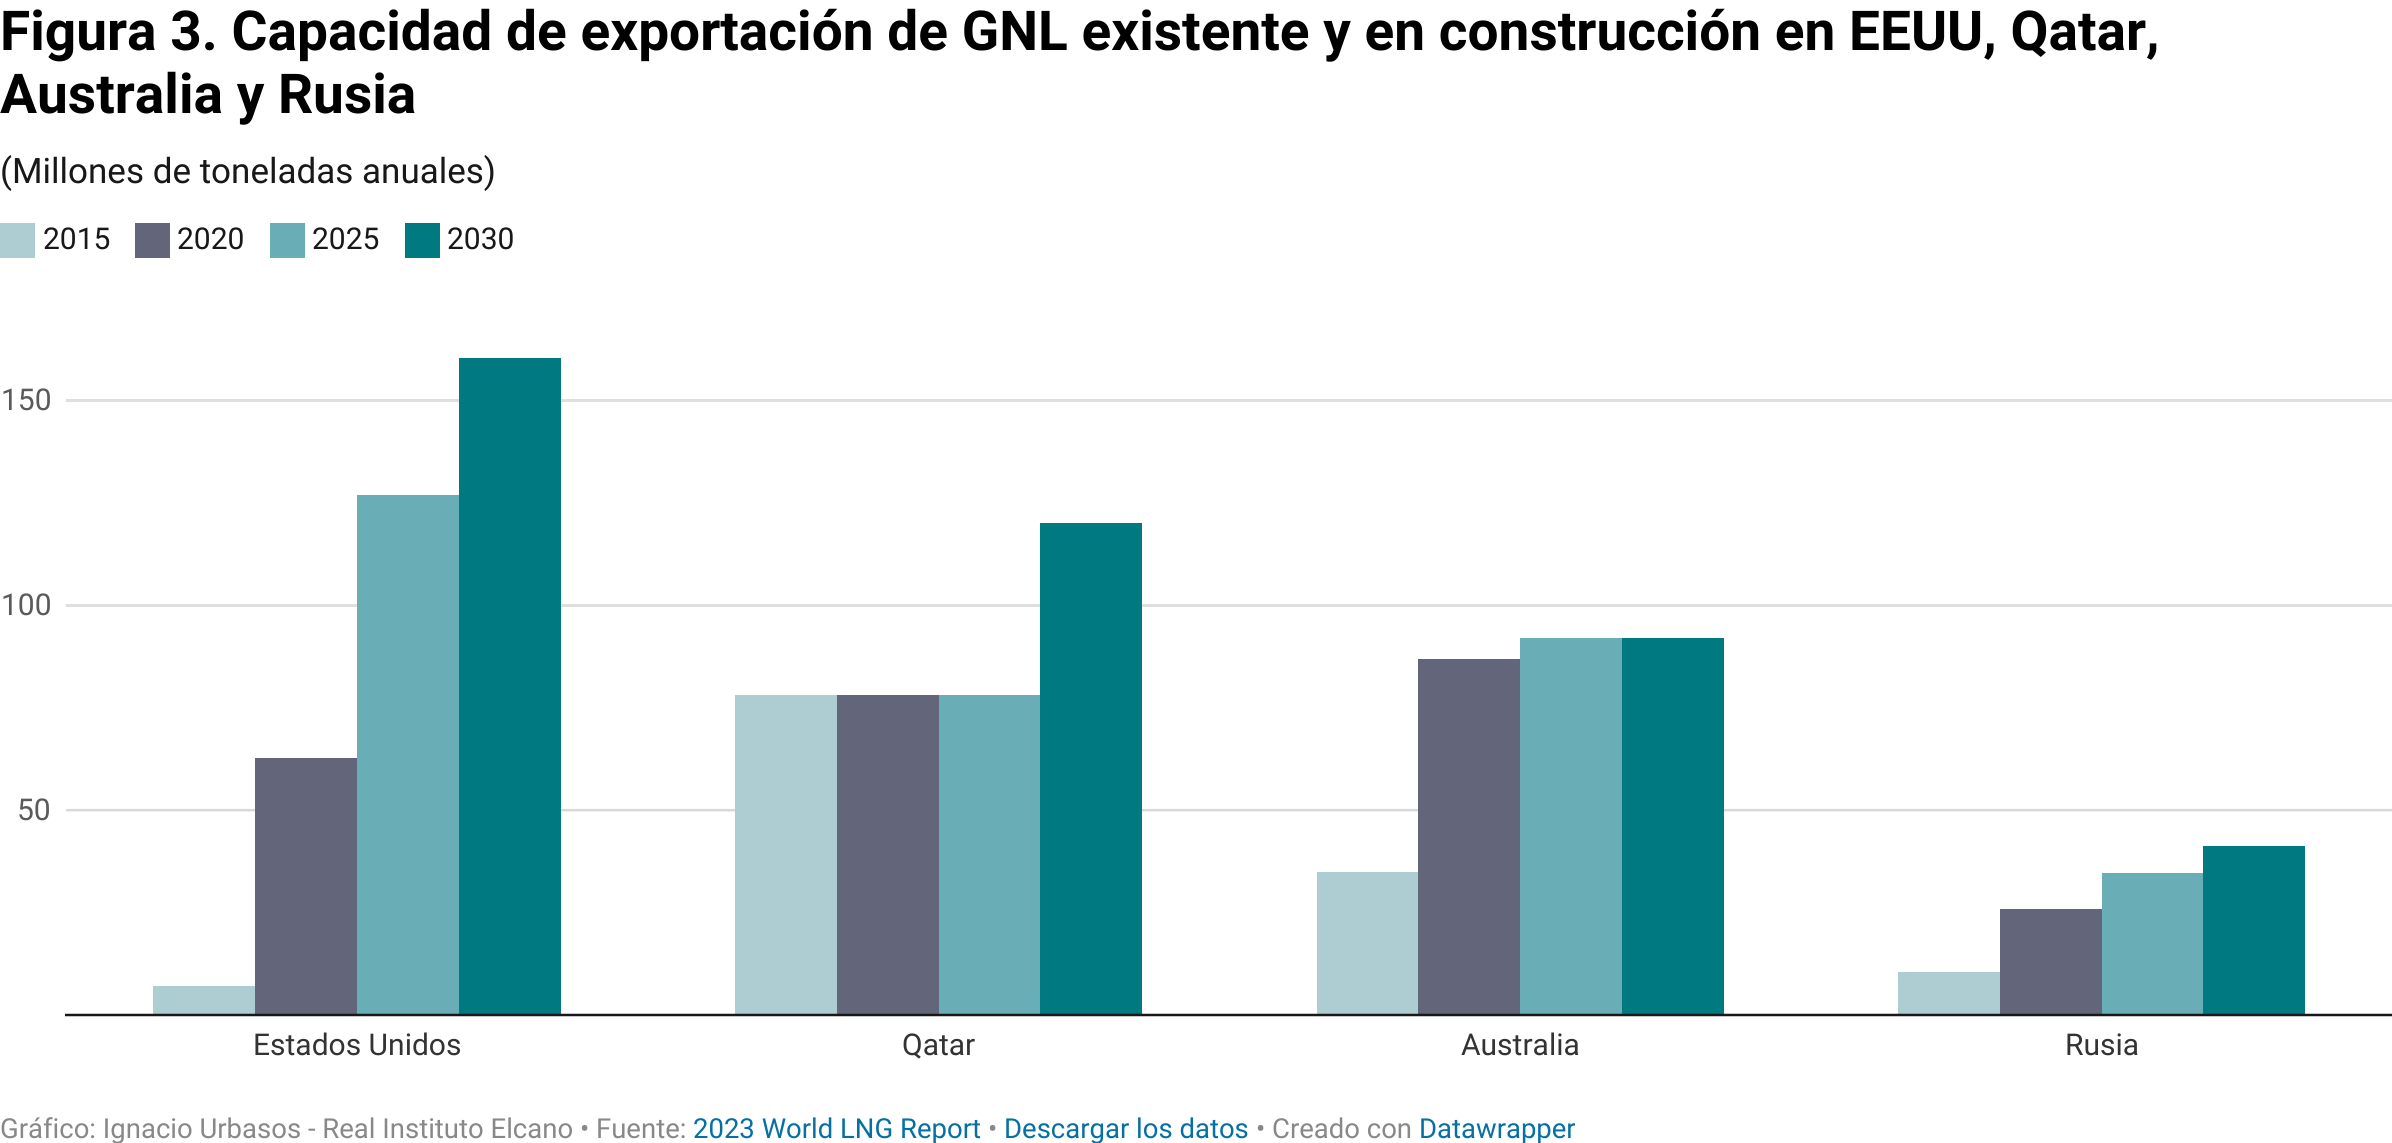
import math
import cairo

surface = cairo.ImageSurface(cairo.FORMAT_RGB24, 2392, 1143)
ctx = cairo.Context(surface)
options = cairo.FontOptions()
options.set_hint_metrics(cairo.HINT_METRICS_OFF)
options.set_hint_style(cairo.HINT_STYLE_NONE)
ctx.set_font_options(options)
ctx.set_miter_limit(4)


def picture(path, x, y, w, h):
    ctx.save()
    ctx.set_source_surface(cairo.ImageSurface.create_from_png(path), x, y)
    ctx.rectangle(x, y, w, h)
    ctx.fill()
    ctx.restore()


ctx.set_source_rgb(1, 1, 1)
ctx.paint()
ctx.select_font_face("Roboto", cairo.FONT_SLANT_NORMAL, cairo.FONT_WEIGHT_BOLD)
ctx.set_font_size(55)
ctx.set_source_rgb(0, 0, 0)
ctx.move_to(0, 50)
ctx.show_text("Figura 3. Capacidad de exportación de GNL existente y en construcción en EEUU, Qatar,")
ctx.move_to(0, 113)
ctx.show_text("Australia y Rusia")
ctx.select_font_face("Roboto")
ctx.set_font_size(35)
ctx.set_source_rgb(0.094, 0.094, 0.094)
ctx.move_to(0, 183)
ctx.show_text("(Millones de toneladas anuales)")
ctx.set_source_rgb(0.678, 0.804, 0.824)
ctx.rectangle(0, 223, 35, 35)
ctx.fill()
ctx.set_font_size(30)
ctx.set_source_rgb(0.094, 0.094, 0.094)
ctx.move_to(43, 249)
ctx.show_text("2015")
ctx.set_source_rgb(0.388, 0.4, 0.482)
ctx.rectangle(135, 223, 35, 35)
ctx.fill()
ctx.set_source_rgb(0.094, 0.094, 0.094)
ctx.move_to(177, 249)
ctx.show_text("2020")
ctx.set_source_rgb(0.412, 0.682, 0.714)
ctx.rectangle(270, 223, 35, 35)
ctx.fill()
ctx.set_source_rgb(0.094, 0.094, 0.094)
ctx.move_to(312, 249)
ctx.show_text("2025")
ctx.set_source_rgb(0, 0.475, 0.506)
ctx.rectangle(405, 223, 35, 35)
ctx.fill()
ctx.set_source_rgb(0.094, 0.094, 0.094)
ctx.move_to(447, 249)
ctx.show_text("2030")
ctx.set_source_rgb(0.353, 0.353, 0.353)
ctx.move_to(1, 410)
ctx.show_text("150")
picture("img1.png", 64, 358, 2328, 659)
ctx.move_to(1, 615)
ctx.show_text("100")
ctx.move_to(17, 820)
ctx.show_text("50")
ctx.set_source_rgb(0.2, 0.2, 0.2)
ctx.move_to(253, 1055)
ctx.show_text("Estados Unidos")
ctx.move_to(902, 1055)
ctx.show_text("Qatar")
ctx.move_to(1461, 1055)
ctx.show_text("Australia")
ctx.move_to(2065, 1055)
ctx.show_text("Rusia")
ctx.set_font_size(27.5)
ctx.set_source_rgb(0.533, 0.533, 0.533)
ctx.move_to(0, 1138)
ctx.show_text("Gráfico: Ignacio Urbasos - Real Instituto Elcano •")
ctx.move_to(596, 1138)
ctx.show_text("Fuente:")
ctx.set_source_rgb(0.027, 0.439, 0.643)
ctx.move_to(693, 1138)
ctx.show_text("2023 World LNG Report")
ctx.set_source_rgb(0.533, 0.533, 0.533)
ctx.move_to(988, 1138)
ctx.show_text("•")
ctx.set_source_rgb(0.027, 0.439, 0.643)
ctx.move_to(1004, 1138)
ctx.show_text("Descargar los datos")
ctx.set_source_rgb(0.533, 0.533, 0.533)
ctx.move_to(1256, 1138)
ctx.show_text("•")
ctx.move_to(1272, 1138)
ctx.show_text("Creado con")
ctx.set_source_rgb(0.027, 0.439, 0.643)
ctx.move_to(1419, 1138)
ctx.show_text("Datawrapper")
surface.write_to_png("page.png")
